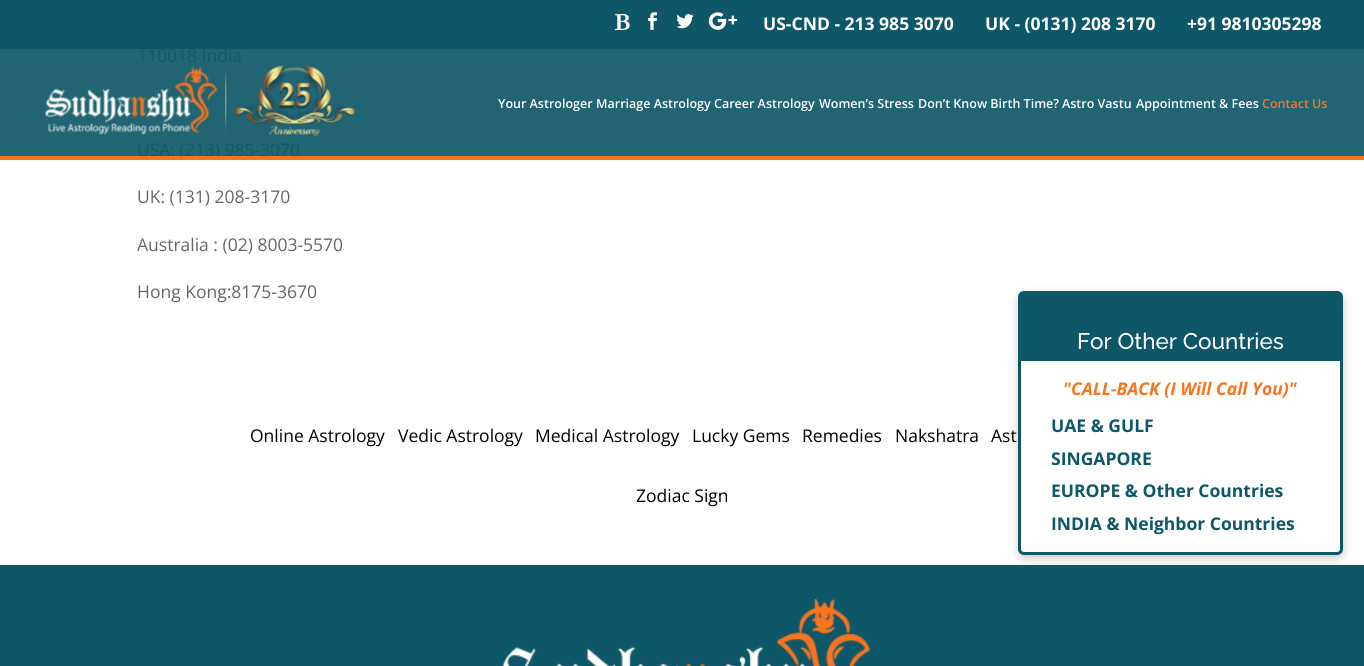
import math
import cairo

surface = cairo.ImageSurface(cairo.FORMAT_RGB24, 1364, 666)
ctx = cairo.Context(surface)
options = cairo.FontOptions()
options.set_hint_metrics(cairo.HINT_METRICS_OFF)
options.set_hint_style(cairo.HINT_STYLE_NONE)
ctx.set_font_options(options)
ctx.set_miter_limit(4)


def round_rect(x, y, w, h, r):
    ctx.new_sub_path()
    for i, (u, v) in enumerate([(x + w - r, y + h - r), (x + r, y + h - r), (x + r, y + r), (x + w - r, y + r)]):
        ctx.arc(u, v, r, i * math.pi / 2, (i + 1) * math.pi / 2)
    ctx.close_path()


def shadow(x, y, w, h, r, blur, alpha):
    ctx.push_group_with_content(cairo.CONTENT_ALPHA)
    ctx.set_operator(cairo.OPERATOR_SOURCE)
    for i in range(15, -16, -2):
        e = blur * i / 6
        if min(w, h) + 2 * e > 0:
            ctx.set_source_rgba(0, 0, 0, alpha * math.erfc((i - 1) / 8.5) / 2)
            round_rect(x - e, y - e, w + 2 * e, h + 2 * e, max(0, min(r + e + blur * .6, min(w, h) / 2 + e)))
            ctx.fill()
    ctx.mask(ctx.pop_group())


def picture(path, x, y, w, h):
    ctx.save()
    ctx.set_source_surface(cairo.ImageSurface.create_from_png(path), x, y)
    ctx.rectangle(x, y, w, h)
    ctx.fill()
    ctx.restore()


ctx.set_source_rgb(1, 1, 1)
ctx.paint()
ctx.set_source_rgb(0.129, 0.392, 0.455)
ctx.rectangle(0, 49, 1364, 107)
ctx.fill()
ctx.select_font_face("Open Sans")
ctx.set_font_size(17.5)
ctx.set_source_rgb(0.082, 0.345, 0.408)
ctx.move_to(137, 62)
ctx.show_text("110018 India")
ctx.set_source_rgb(0.055, 0.341, 0.408)
ctx.rectangle(0, 0, 1364, 49)
ctx.fill()
picture("img1.png", 615, 14, 15, 17)
picture("img2.png", 648, 12, 9, 18)
picture("img3.png", 676, 14, 18, 15)
picture("img4.png", 708, 12, 30, 18)
ctx.select_font_face("Open Sans", cairo.FONT_SLANT_NORMAL, cairo.FONT_WEIGHT_BOLD)
ctx.set_source_rgb(1, 1, 1)
ctx.move_to(763, 30)
ctx.show_text("US-CND - 213 985 3070")
ctx.move_to(985, 30)
ctx.show_text("UK - (0131) 208 3170")
ctx.move_to(1187, 30)
ctx.show_text("+91 9810305298")
ctx.select_font_face("Open Sans")
ctx.set_source_rgb(0.082, 0.345, 0.408)
ctx.move_to(137, 156)
ctx.show_text("USA: (213) 985-3070")
ctx.set_source_rgb(0.4, 0.4, 0.4)
ctx.move_to(137, 203)
ctx.show_text("UK: (131) 208-3170")
ctx.move_to(137, 251)
ctx.show_text("Australia : (02) 8003-5570")
ctx.move_to(137, 298)
ctx.show_text("Hong Kong:8175-3670")
ctx.set_source_rgb(0, 0, 0)
ctx.move_to(250, 442)
ctx.show_text("Online Astrology")
ctx.move_to(398, 442)
ctx.show_text("Vedic Astrology")
ctx.move_to(535, 442)
ctx.show_text("Medical Astrology")
ctx.move_to(692, 442)
ctx.show_text("Lucky Gems")
ctx.move_to(802, 442)
ctx.show_text("Remedies")
ctx.move_to(895, 442)
ctx.show_text("Nakshatra")
ctx.move_to(991, 442)
ctx.show_text("Ast")
ctx.move_to(636, 502)
ctx.show_text("Zodiac Sign")
ctx.set_source_rgb(0.055, 0.341, 0.408)
ctx.rectangle(0, 565, 1364, 101)
ctx.fill()
picture("img5.png", 502, 599, 368, 67)
ctx.set_source_rgb(0, 0, 0)
shadow(1021, 298, 320, 258, 4, 6, 0.3)
ctx.set_source_rgb(1, 1, 1)
round_rect(1019.5, 292.5, 322, 261, 4.5)
ctx.fill_preserve()
ctx.set_source_rgb(0.055, 0.341, 0.408)
ctx.set_line_width(3)
ctx.stroke()
ctx.rectangle(1021, 294, 319, 67)
ctx.fill()
ctx.select_font_face("Raleway Medium")
ctx.set_font_size(22.5)
ctx.set_source_rgb(1, 1, 1)
ctx.move_to(1077, 349)
ctx.show_text("For Other Countries")
ctx.select_font_face("Open Sans", cairo.FONT_SLANT_ITALIC, cairo.FONT_WEIGHT_BOLD)
ctx.set_font_size(17.5)
ctx.set_source_rgb(0.969, 0.459, 0.122)
ctx.move_to(1063, 395)
ctx.show_text("\"CALL-BACK (I Will Call You)\"")
ctx.select_font_face("Open Sans", cairo.FONT_SLANT_NORMAL, cairo.FONT_WEIGHT_BOLD)
ctx.set_source_rgb(0.055, 0.341, 0.408)
ctx.move_to(1051, 432)
ctx.show_text("UAE & GULF")
ctx.move_to(1051, 465)
ctx.show_text("SINGAPORE")
ctx.move_to(1051, 497)
ctx.show_text("EUROPE & Other Countries")
ctx.move_to(1051, 530)
ctx.show_text("INDIA & Neighbor Countries")
ctx.set_source_rgb(0.969, 0.459, 0.122)
ctx.rectangle(0, 156, 1364, 4)
ctx.fill()
picture("img6.png", 45, 65, 310, 72)
ctx.select_font_face("Open Sans SemiBold")
ctx.set_font_size(12.5)
ctx.set_source_rgb(1, 1, 1)
ctx.move_to(498, 108)
ctx.show_text("Your Astrologer")
ctx.move_to(596, 108)
ctx.show_text("Marriage Astrology")
ctx.move_to(714, 108)
ctx.show_text("Career Astrology")
ctx.move_to(819, 108)
ctx.show_text("Women’s Stress")
ctx.move_to(918, 108)
ctx.show_text("Don’t Know Birth Time?")
ctx.move_to(1062, 108)
ctx.show_text("Astro Vastu")
ctx.move_to(1136, 108)
ctx.show_text("Appointment & Fees")
ctx.set_source_rgb(0.969, 0.459, 0.122)
ctx.move_to(1262, 108)
ctx.show_text("Contact Us")
surface.write_to_png("page.png")
